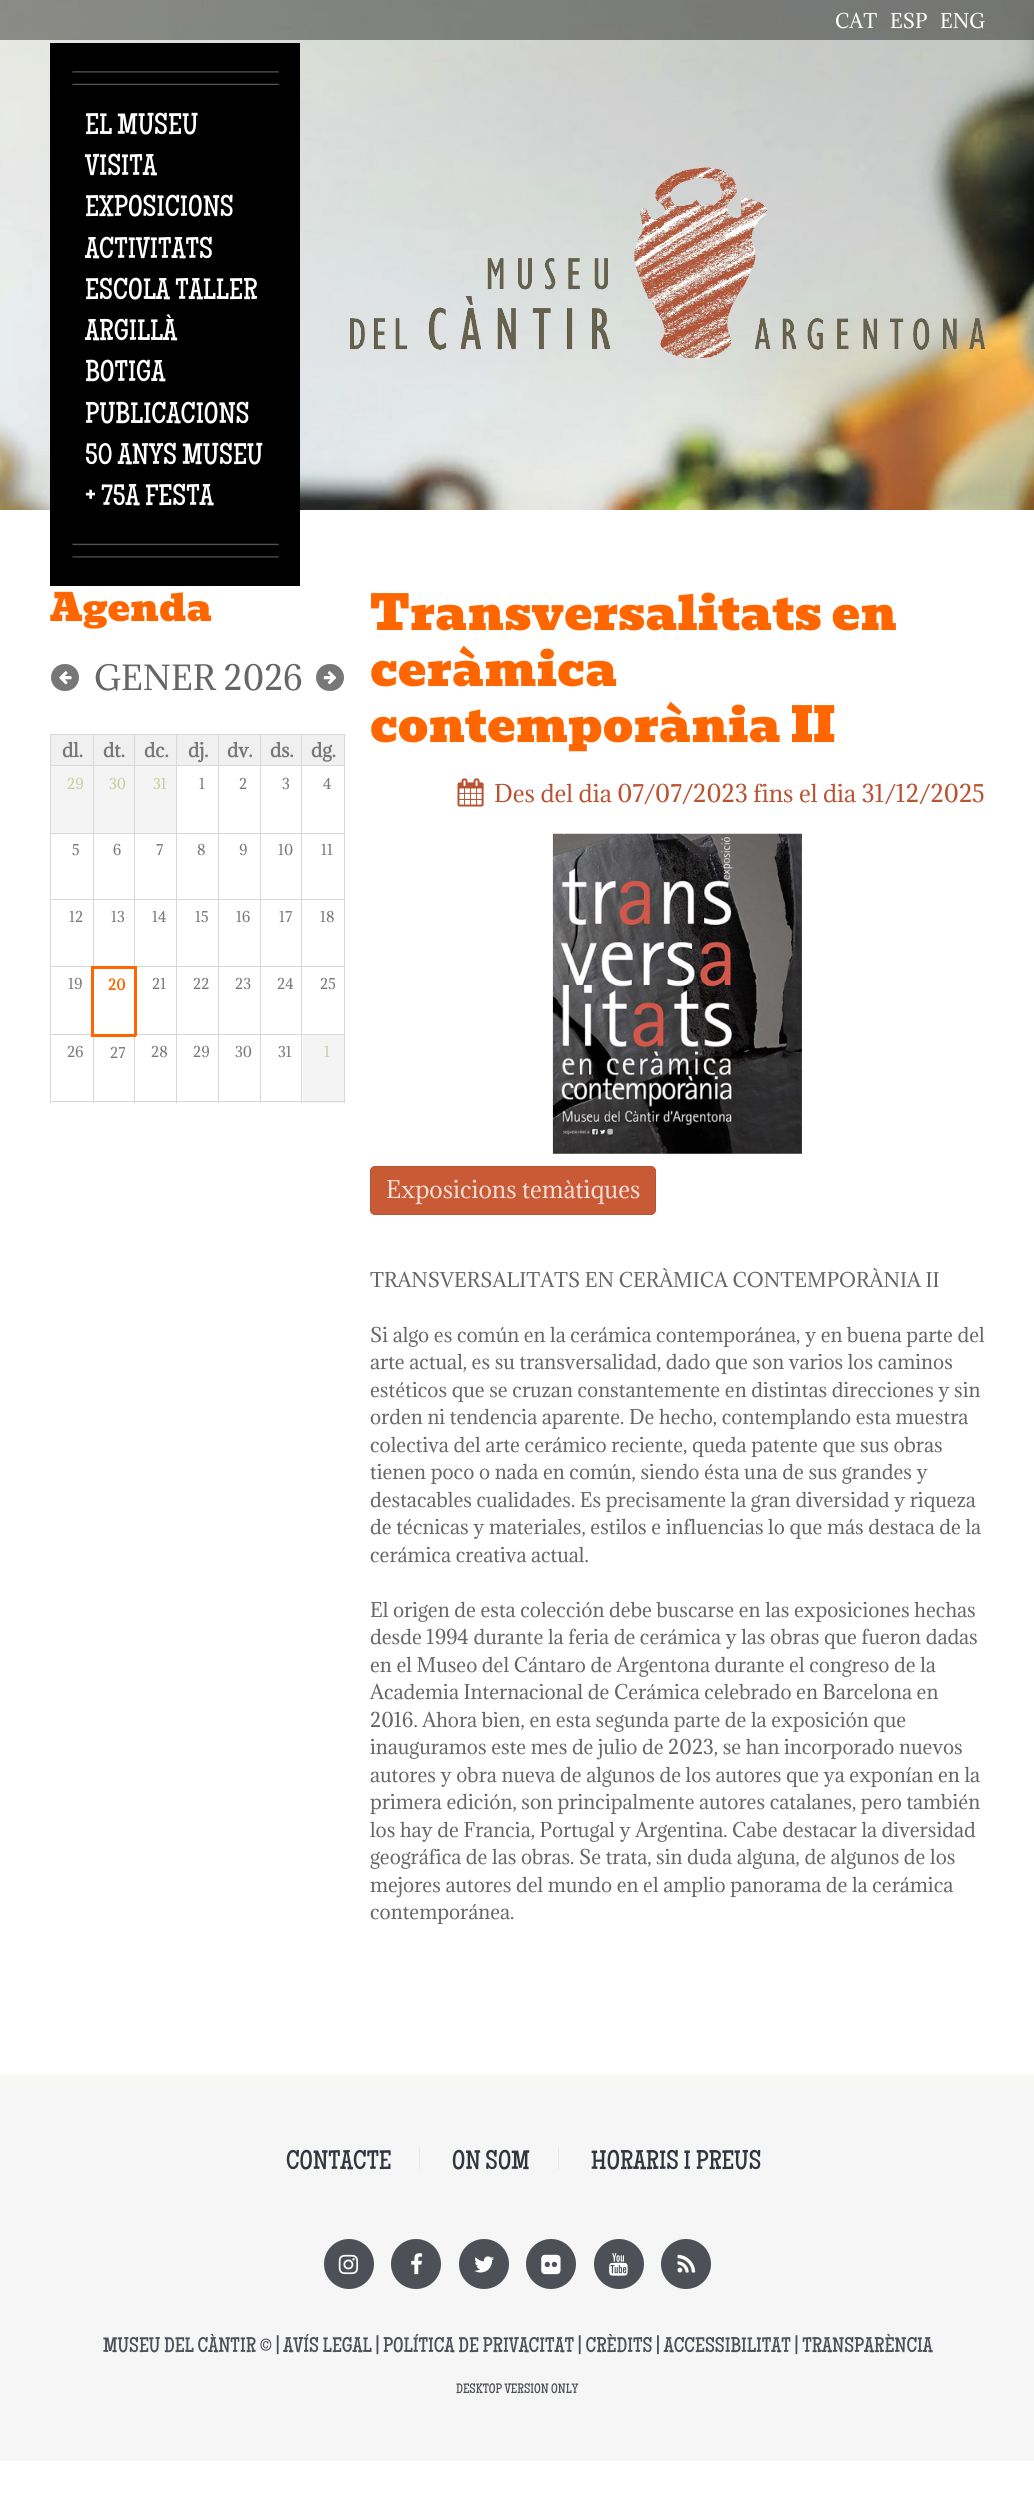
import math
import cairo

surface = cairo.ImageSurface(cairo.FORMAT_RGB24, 1034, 2512)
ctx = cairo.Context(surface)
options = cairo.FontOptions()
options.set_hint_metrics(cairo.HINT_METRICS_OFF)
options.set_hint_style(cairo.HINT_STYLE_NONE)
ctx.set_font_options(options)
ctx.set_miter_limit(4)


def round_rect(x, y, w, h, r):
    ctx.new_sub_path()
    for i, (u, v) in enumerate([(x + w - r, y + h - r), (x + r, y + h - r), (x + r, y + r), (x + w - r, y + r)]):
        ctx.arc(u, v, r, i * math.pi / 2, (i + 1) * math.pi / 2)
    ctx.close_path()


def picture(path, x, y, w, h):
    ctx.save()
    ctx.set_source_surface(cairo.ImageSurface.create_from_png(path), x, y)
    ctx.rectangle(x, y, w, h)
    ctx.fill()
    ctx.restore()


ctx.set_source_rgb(1, 1, 1)
ctx.paint()
picture("img1.png", 0, 0, 1034, 510)
ctx.set_source_rgba(0, 0, 0, 0.4)
ctx.rectangle(0, 0, 1034, 40)
ctx.fill()
ctx.select_font_face("Adamina")
ctx.set_font_size(18.75)
ctx.set_source_rgb(1, 1, 1)
ctx.move_to(835, 28)
ctx.show_text("CAT")
ctx.move_to(890, 28)
ctx.show_text("ESP")
ctx.move_to(940, 28)
ctx.show_text("ENG")
ctx.set_source_rgb(0, 0, 0)
ctx.rectangle(50, 43, 250, 543)
ctx.fill()
picture("img2.png", 72, 71, 207, 14)
picture("img3.png", 72, 543, 207, 15)
ctx.select_font_face("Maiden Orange")
ctx.set_font_size(30)
ctx.set_source_rgb(1, 1, 1)
ctx.move_to(85, 134)
ctx.show_text("EL MUSEU")
ctx.move_to(85, 175)
ctx.show_text("VISITA")
ctx.move_to(85, 216)
ctx.show_text("EXPOSICIONS")
ctx.move_to(85, 258)
ctx.show_text("ACTIVITATS")
ctx.move_to(85, 299)
ctx.show_text("ESCOLA TALLER")
ctx.move_to(85, 340)
ctx.show_text("ARGILLÀ")
ctx.move_to(85, 381)
ctx.show_text("BOTIGA")
ctx.move_to(85, 423)
ctx.show_text("PUBLICACIONS")
ctx.move_to(85, 464)
ctx.show_text("50 ANYS MUSEU")
ctx.move_to(85, 505)
ctx.show_text("+ 75A FESTA")
picture("img4.png", 350, 167, 635, 192)
ctx.select_font_face("Bevan")
ctx.set_font_size(37.5)
ctx.set_source_rgb(1, 0.4, 0)
ctx.move_to(50, 621)
ctx.show_text("Agenda")
ctx.select_font_face("Adamina")
ctx.set_font_size(32)
ctx.set_source_rgb(0.4, 0.4, 0.4)
ctx.move_to(94, 690)
ctx.show_text("GENER 2026")
ctx.set_source_rgb(0.467, 0.467, 0.467)
round_rect(51, 664, 28, 27, 13.5)
ctx.fill()
picture("img5.png", 59, 671, 13, 14)
round_rect(316, 664, 28, 27, 13.5)
ctx.fill()
picture("img6.png", 323, 671, 13, 14)
ctx.set_source_rgb(0.941, 0.941, 0.941)
ctx.rectangle(51, 735, 42, 30)
ctx.fill()
ctx.set_source_rgb(0.847, 0.847, 0.855)
ctx.rectangle(301, 734, 44, 1)
ctx.fill()
ctx.set_source_rgb(0.941, 0.941, 0.941)
ctx.rectangle(261, 735, 83, 30)
ctx.fill()
ctx.set_source_rgb(0.847, 0.847, 0.855)
ctx.rectangle(301, 765, 44, 1)
ctx.fill()
ctx.rectangle(301, 833, 44, 1)
ctx.fill()
ctx.rectangle(301, 899, 44, 1)
ctx.fill()
ctx.rectangle(301, 966, 44, 1)
ctx.fill()
ctx.rectangle(301, 1034, 44, 1)
ctx.fill()
ctx.rectangle(344, 1069, 1, 34)
ctx.fill()
ctx.set_source_rgb(0.957, 0.957, 0.957)
ctx.rectangle(303, 1035, 41, 68)
ctx.fill()
ctx.set_source_rgb(0.847, 0.847, 0.855)
ctx.rectangle(301, 1101, 44, 1)
ctx.fill()
ctx.rectangle(301, 1069, 1, 34)
ctx.fill()
ctx.rectangle(301, 1034, 1, 36)
ctx.fill()
ctx.rectangle(260, 1034, 43, 1)
ctx.fill()
ctx.rectangle(301, 1000, 1, 35)
ctx.fill()
ctx.rectangle(301, 966, 1, 35)
ctx.fill()
ctx.rectangle(260, 966, 43, 1)
ctx.fill()
ctx.rectangle(301, 933, 1, 35)
ctx.fill()
ctx.rectangle(301, 899, 1, 35)
ctx.fill()
ctx.rectangle(260, 899, 43, 1)
ctx.fill()
ctx.rectangle(301, 866, 1, 34)
ctx.fill()
ctx.rectangle(301, 833, 1, 35)
ctx.fill()
ctx.rectangle(260, 833, 43, 1)
ctx.fill()
ctx.rectangle(301, 799, 1, 35)
ctx.fill()
ctx.rectangle(301, 765, 1, 35)
ctx.fill()
ctx.rectangle(260, 765, 43, 1)
ctx.fill()
ctx.rectangle(301, 734, 1, 32)
ctx.fill()
ctx.rectangle(260, 734, 43, 1)
ctx.fill()
ctx.rectangle(260, 1101, 43, 1)
ctx.fill()
ctx.rectangle(260, 1069, 1, 34)
ctx.fill()
ctx.rectangle(260, 1034, 1, 36)
ctx.fill()
ctx.rectangle(218, 1034, 43, 1)
ctx.fill()
ctx.rectangle(260, 1000, 1, 35)
ctx.fill()
ctx.rectangle(260, 966, 1, 35)
ctx.fill()
ctx.rectangle(218, 966, 43, 1)
ctx.fill()
ctx.rectangle(260, 933, 1, 35)
ctx.fill()
ctx.rectangle(260, 899, 1, 35)
ctx.fill()
ctx.rectangle(218, 899, 43, 1)
ctx.fill()
ctx.rectangle(260, 866, 1, 34)
ctx.fill()
ctx.rectangle(260, 833, 1, 35)
ctx.fill()
ctx.rectangle(218, 833, 43, 1)
ctx.fill()
ctx.rectangle(260, 799, 1, 35)
ctx.fill()
ctx.rectangle(260, 765, 1, 35)
ctx.fill()
ctx.rectangle(218, 765, 43, 1)
ctx.fill()
ctx.rectangle(260, 734, 1, 32)
ctx.fill()
ctx.rectangle(218, 734, 43, 1)
ctx.fill()
ctx.rectangle(218, 1101, 43, 1)
ctx.fill()
ctx.rectangle(218, 1069, 1, 34)
ctx.fill()
ctx.rectangle(218, 1034, 1, 36)
ctx.fill()
ctx.rectangle(176, 1034, 43, 1)
ctx.fill()
ctx.rectangle(218, 1000, 1, 35)
ctx.fill()
ctx.rectangle(218, 966, 1, 35)
ctx.fill()
ctx.rectangle(176, 966, 43, 1)
ctx.fill()
ctx.rectangle(218, 933, 1, 35)
ctx.fill()
ctx.rectangle(218, 899, 1, 35)
ctx.fill()
ctx.rectangle(176, 899, 43, 1)
ctx.fill()
ctx.rectangle(218, 866, 1, 34)
ctx.fill()
ctx.rectangle(218, 833, 1, 35)
ctx.fill()
ctx.rectangle(176, 833, 43, 1)
ctx.fill()
ctx.rectangle(218, 799, 1, 35)
ctx.fill()
ctx.rectangle(218, 765, 1, 35)
ctx.fill()
ctx.rectangle(176, 765, 43, 1)
ctx.fill()
ctx.rectangle(218, 734, 1, 32)
ctx.fill()
ctx.rectangle(176, 734, 43, 1)
ctx.fill()
ctx.rectangle(176, 1101, 43, 1)
ctx.fill()
ctx.rectangle(176, 1069, 1, 34)
ctx.fill()
ctx.rectangle(176, 1034, 1, 36)
ctx.fill()
ctx.rectangle(134, 1034, 44, 1)
ctx.fill()
ctx.rectangle(176, 1000, 1, 35)
ctx.fill()
ctx.rectangle(176, 966, 1, 35)
ctx.fill()
ctx.rectangle(134, 966, 44, 1)
ctx.fill()
ctx.rectangle(176, 933, 1, 35)
ctx.fill()
ctx.rectangle(176, 899, 1, 35)
ctx.fill()
ctx.rectangle(134, 899, 44, 1)
ctx.fill()
ctx.rectangle(176, 866, 1, 34)
ctx.fill()
ctx.rectangle(176, 833, 1, 35)
ctx.fill()
ctx.rectangle(134, 833, 44, 1)
ctx.fill()
ctx.rectangle(176, 799, 1, 35)
ctx.fill()
ctx.rectangle(176, 765, 1, 35)
ctx.fill()
ctx.rectangle(134, 765, 44, 1)
ctx.fill()
ctx.rectangle(176, 734, 1, 32)
ctx.fill()
ctx.rectangle(134, 734, 44, 1)
ctx.fill()
ctx.rectangle(134, 933, 1, 35)
ctx.fill()
ctx.rectangle(134, 899, 1, 35)
ctx.fill()
ctx.rectangle(93, 899, 42, 1)
ctx.fill()
ctx.rectangle(134, 866, 1, 34)
ctx.fill()
ctx.rectangle(134, 833, 1, 35)
ctx.fill()
ctx.rectangle(93, 833, 42, 1)
ctx.fill()
ctx.rectangle(134, 799, 1, 35)
ctx.fill()
ctx.rectangle(134, 765, 1, 35)
ctx.fill()
ctx.rectangle(93, 765, 42, 1)
ctx.fill()
ctx.rectangle(134, 734, 1, 32)
ctx.fill()
ctx.rectangle(93, 734, 42, 1)
ctx.fill()
ctx.rectangle(50, 966, 44, 1)
ctx.fill()
ctx.rectangle(93, 933, 1, 35)
ctx.fill()
ctx.rectangle(93, 899, 1, 35)
ctx.fill()
ctx.rectangle(50, 899, 44, 1)
ctx.fill()
ctx.rectangle(93, 866, 1, 34)
ctx.fill()
ctx.rectangle(93, 833, 1, 35)
ctx.fill()
ctx.rectangle(50, 833, 44, 1)
ctx.fill()
ctx.rectangle(93, 799, 1, 35)
ctx.fill()
ctx.rectangle(93, 765, 1, 35)
ctx.fill()
ctx.rectangle(50, 765, 44, 1)
ctx.fill()
ctx.rectangle(93, 734, 1, 32)
ctx.fill()
ctx.rectangle(50, 734, 44, 1)
ctx.fill()
ctx.rectangle(134, 1101, 44, 1)
ctx.fill()
ctx.rectangle(134, 1069, 1, 34)
ctx.fill()
ctx.rectangle(93, 1101, 42, 1)
ctx.fill()
ctx.rectangle(93, 1034, 1, 69)
ctx.fill()
ctx.rectangle(50, 1101, 44, 1)
ctx.fill()
ctx.rectangle(50, 1069, 1, 34)
ctx.fill()
ctx.rectangle(50, 1034, 44, 1)
ctx.fill()
ctx.rectangle(50, 1000, 1, 70)
ctx.fill()
ctx.rectangle(50, 933, 1, 68)
ctx.fill()
ctx.rectangle(50, 866, 1, 68)
ctx.fill()
ctx.rectangle(50, 799, 1, 69)
ctx.fill()
ctx.rectangle(50, 765, 1, 35)
ctx.fill()
ctx.rectangle(50, 734, 1, 32)
ctx.fill()
ctx.select_font_face("Adamina", cairo.FONT_SLANT_NORMAL, cairo.FONT_WEIGHT_BOLD)
ctx.set_font_size(18)
ctx.set_source_rgb(0.467, 0.467, 0.467)
ctx.move_to(62, 757)
ctx.show_text("dl.")
ctx.set_source_rgb(0.941, 0.941, 0.941)
ctx.rectangle(94, 735, 40, 30)
ctx.fill()
ctx.set_source_rgb(0.467, 0.467, 0.467)
ctx.move_to(103, 757)
ctx.show_text("dt.")
ctx.set_source_rgb(0.941, 0.941, 0.941)
ctx.rectangle(135, 735, 41, 30)
ctx.fill()
ctx.set_source_rgb(0.467, 0.467, 0.467)
ctx.move_to(144, 757)
ctx.show_text("dc.")
ctx.set_source_rgb(0.941, 0.941, 0.941)
ctx.rectangle(177, 735, 41, 30)
ctx.fill()
ctx.set_source_rgb(0.467, 0.467, 0.467)
ctx.move_to(188, 757)
ctx.show_text("dj.")
ctx.set_source_rgb(0.941, 0.941, 0.941)
ctx.rectangle(219, 735, 41, 30)
ctx.fill()
ctx.set_source_rgb(0.467, 0.467, 0.467)
ctx.move_to(227, 757)
ctx.show_text("dv.")
ctx.move_to(270, 757)
ctx.show_text("ds.")
ctx.set_source_rgb(0.847, 0.847, 0.855)
ctx.rectangle(344, 1000, 1, 70)
ctx.fill()
ctx.rectangle(344, 933, 1, 68)
ctx.fill()
ctx.rectangle(344, 866, 1, 68)
ctx.fill()
ctx.rectangle(344, 799, 1, 69)
ctx.fill()
ctx.rectangle(344, 765, 1, 35)
ctx.fill()
ctx.rectangle(344, 734, 1, 32)
ctx.fill()
ctx.set_source_rgb(0.467, 0.467, 0.467)
ctx.move_to(311, 757)
ctx.show_text("dg.")
ctx.set_source_rgb(0.957, 0.957, 0.957)
ctx.rectangle(51, 766, 42, 67)
ctx.fill()
ctx.select_font_face("Adamina")
ctx.set_font_size(13.75)
ctx.set_source_rgb(0.8, 0.8, 0.6)
ctx.move_to(67, 789)
ctx.show_text("29")
ctx.set_source_rgb(0.957, 0.957, 0.957)
ctx.rectangle(94, 766, 40, 67)
ctx.fill()
ctx.set_source_rgb(0.8, 0.8, 0.6)
ctx.move_to(109, 789)
ctx.show_text("30")
ctx.set_source_rgb(0.957, 0.957, 0.957)
ctx.rectangle(135, 766, 41, 67)
ctx.fill()
ctx.set_source_rgb(0.8, 0.8, 0.6)
ctx.move_to(153, 789)
ctx.show_text("31")
ctx.set_source_rgb(0.467, 0.467, 0.467)
ctx.move_to(199, 789)
ctx.show_text("1")
ctx.move_to(239, 789)
ctx.show_text("2")
ctx.move_to(282, 789)
ctx.show_text("3")
ctx.move_to(323, 789)
ctx.show_text("4")
ctx.move_to(72, 855)
ctx.show_text("5")
ctx.move_to(113, 855)
ctx.show_text("6")
ctx.move_to(156, 855)
ctx.show_text("7")
ctx.move_to(197, 855)
ctx.show_text("8")
ctx.move_to(239, 855)
ctx.show_text("9")
ctx.move_to(278, 855)
ctx.show_text("10")
ctx.move_to(321, 855)
ctx.show_text("11")
ctx.move_to(69, 922)
ctx.show_text("12")
ctx.move_to(111, 922)
ctx.show_text("13")
ctx.move_to(152, 922)
ctx.show_text("14")
ctx.move_to(195, 922)
ctx.show_text("15")
ctx.move_to(236, 922)
ctx.show_text("16")
ctx.move_to(279, 922)
ctx.show_text("17")
ctx.move_to(320, 922)
ctx.show_text("18")
ctx.move_to(68, 989)
ctx.show_text("19")
ctx.set_source_rgb(1, 0.4, 0)
ctx.rectangle(91, 966, 45, 3)
ctx.fill()
ctx.set_source_rgb(0.847, 0.847, 0.855)
ctx.rectangle(134, 1034, 1, 36)
ctx.fill()
ctx.set_source_rgb(1, 0.4, 0)
ctx.rectangle(134, 1000, 3, 36)
ctx.fill()
ctx.rectangle(134, 966, 3, 37)
ctx.fill()
ctx.rectangle(91, 1034, 45, 3)
ctx.fill()
ctx.rectangle(91, 1000, 3, 36)
ctx.fill()
ctx.rectangle(91, 966, 3, 37)
ctx.fill()
ctx.select_font_face("Adamina", cairo.FONT_SLANT_NORMAL, cairo.FONT_WEIGHT_BOLD)
ctx.move_to(108, 990)
ctx.show_text("20")
ctx.select_font_face("Adamina")
ctx.set_source_rgb(0.467, 0.467, 0.467)
ctx.move_to(152, 989)
ctx.show_text("21")
ctx.move_to(193, 989)
ctx.show_text("22")
ctx.move_to(235, 989)
ctx.show_text("23")
ctx.move_to(277, 989)
ctx.show_text("24")
ctx.move_to(320, 989)
ctx.show_text("25")
ctx.move_to(67, 1057)
ctx.show_text("26")
ctx.move_to(110, 1058)
ctx.show_text("27")
ctx.move_to(151, 1057)
ctx.show_text("28")
ctx.move_to(193, 1057)
ctx.show_text("29")
ctx.move_to(235, 1057)
ctx.show_text("30")
ctx.move_to(278, 1057)
ctx.show_text("31")
ctx.set_source_rgb(0.8, 0.8, 0.6)
ctx.move_to(324, 1057)
ctx.show_text("1")
ctx.select_font_face("Bevan")
ctx.set_font_size(47.5)
ctx.set_source_rgb(1, 0.4, 0)
ctx.move_to(370, 630)
ctx.show_text("Transversalitats en")
ctx.move_to(370, 686)
ctx.show_text("ceràmica")
ctx.move_to(370, 742)
ctx.show_text("contemporània II")
picture("img7.png", 457, 778, 27, 29)
ctx.select_font_face("Adamina")
ctx.set_font_size(22.5)
ctx.set_source_rgb(0.729, 0.325, 0.196)
ctx.move_to(494, 802)
ctx.show_text("Des del dia 07/07/2023 fins el dia 31/12/2025")
picture("img8.png", 552, 833, 250, 321)
ctx.set_source_rgb(0.788, 0.353, 0.212)
round_rect(370.5, 1166.5, 285, 48, 4.5)
ctx.fill_preserve()
ctx.set_source_rgb(0.729, 0.325, 0.196)
ctx.set_line_width(1)
ctx.stroke()
ctx.set_source_rgb(0.957, 0.871, 0.843)
ctx.move_to(386, 1198)
ctx.show_text("Exposicions temàtiques")
ctx.set_font_size(18.75)
ctx.set_source_rgb(0.4, 0.4, 0.4)
ctx.move_to(370, 1287)
ctx.show_text("TRANSVERSALITATS EN CERÀMICA CONTEMPORÀNIA II")
ctx.move_to(370, 1342)
ctx.show_text("Si algo es común en la cerámica contemporánea, y en buena parte del")
ctx.move_to(370, 1369)
ctx.show_text("arte actual, es su transversalidad, dado que son varios los caminos")
ctx.move_to(370, 1397)
ctx.show_text("estéticos que se cruzan constantemente en distintas direcciones y sin")
ctx.move_to(370, 1424)
ctx.show_text("orden ni tendencia aparente. De hecho, contemplando esta muestra")
ctx.move_to(370, 1452)
ctx.show_text("colectiva del arte cerámico reciente, queda patente que sus obras")
ctx.move_to(370, 1479)
ctx.show_text("tienen poco o nada en común, siendo ésta una de sus grandes y")
ctx.move_to(370, 1507)
ctx.show_text("destacables cualidades. Es precisamente la gran diversidad y riqueza")
ctx.move_to(370, 1534)
ctx.show_text("de técnicas y materiales, estilos e influencias lo que más destaca de la")
ctx.move_to(370, 1562)
ctx.show_text("cerámica creativa actual.")
ctx.move_to(370, 1617)
ctx.show_text("El origen de esta colección debe buscarse en las exposiciones hechas")
ctx.move_to(370, 1644)
ctx.show_text("desde 1994 durante la feria de cerámica y las obras que fueron dadas")
ctx.move_to(370, 1672)
ctx.show_text("en el Museo del Cántaro de Argentona durante el congreso de la")
ctx.move_to(370, 1699)
ctx.show_text("Academia Internacional de Cerámica celebrado en Barcelona en")
ctx.move_to(370, 1727)
ctx.show_text("2016. Ahora bien, en esta segunda parte de la exposición que")
ctx.move_to(370, 1754)
ctx.show_text("inauguramos este mes de julio de 2023, se han incorporado nuevos")
ctx.move_to(370, 1782)
ctx.show_text("autores y obra nueva de algunos de los autores que ya exponían en la")
ctx.move_to(370, 1809)
ctx.show_text("primera edición, son principalmente autores catalanes, pero también")
ctx.move_to(370, 1837)
ctx.show_text("los hay de Francia, Portugal y Argentina. Cabe destacar la diversidad")
ctx.move_to(370, 1864)
ctx.show_text("geográfica de las obras. Se trata, sin duda alguna, de algunos de los")
ctx.move_to(370, 1892)
ctx.show_text("mejores autores del mundo en el amplio panorama de la cerámica")
ctx.move_to(370, 1919)
ctx.show_text("contemporánea.")
ctx.set_source_rgb(0.961, 0.961, 0.961)
ctx.rectangle(0, 2083, 1034, 378)
ctx.fill()
ctx.set_source_rgb(0.973, 0.969, 0.953)
ctx.rectangle(0, 2074, 1034, 9)
ctx.fill()
ctx.select_font_face("Maiden Orange")
ctx.set_font_size(27)
ctx.set_source_rgb(0.192, 0.208, 0.239)
ctx.move_to(286, 2169)
ctx.show_text("CONTACTE")
ctx.set_source_rgb(0.898, 0.898, 0.902)
ctx.rectangle(419, 2148, 1, 21)
ctx.fill()
ctx.set_source_rgb(0.192, 0.208, 0.239)
ctx.move_to(452, 2169)
ctx.show_text("ON SOM")
ctx.set_source_rgb(0.898, 0.898, 0.902)
ctx.rectangle(558, 2148, 1, 21)
ctx.fill()
ctx.set_source_rgb(0.192, 0.208, 0.239)
ctx.move_to(591, 2169)
ctx.show_text("HORARIS I PREUS")
ctx.set_source_rgb(0.302, 0.314, 0.341)
ctx.new_path()
ctx.arc(349, 2264, 25, 0, 2 * math.pi)
ctx.fill()
picture("img9.png", 338, 2254, 21, 21)
ctx.arc(416, 2264, 25, 0, 2 * math.pi)
ctx.fill()
picture("img10.png", 411, 2253, 12, 22)
ctx.arc(484, 2264, 25, 0, 2 * math.pi)
ctx.fill()
picture("img11.png", 474, 2256, 20, 17)
ctx.arc(551, 2264, 25, 0, 2 * math.pi)
ctx.fill()
picture("img12.png", 541, 2254, 20, 21)
ctx.arc(619, 2264, 25, 0, 2 * math.pi)
ctx.fill()
picture("img13.png", 609, 2253, 19, 23)
ctx.arc(686, 2264, 25, 0, 2 * math.pi)
ctx.fill()
picture("img14.png", 677, 2254, 19, 19)
ctx.set_font_size(21.25)
ctx.move_to(103, 2352)
ctx.show_text("MUSEU DEL CÀNTIR © | AVÍS LEGAL | POLÍTICA DE PRIVACITAT | CRÈDITS | ACCESSIBILITAT | TRANSPARÈNCIA")
ctx.set_font_size(13.75)
ctx.move_to(456, 2393)
ctx.show_text("DESKTOP VERSION ONLY")
surface.write_to_png("page.png")
